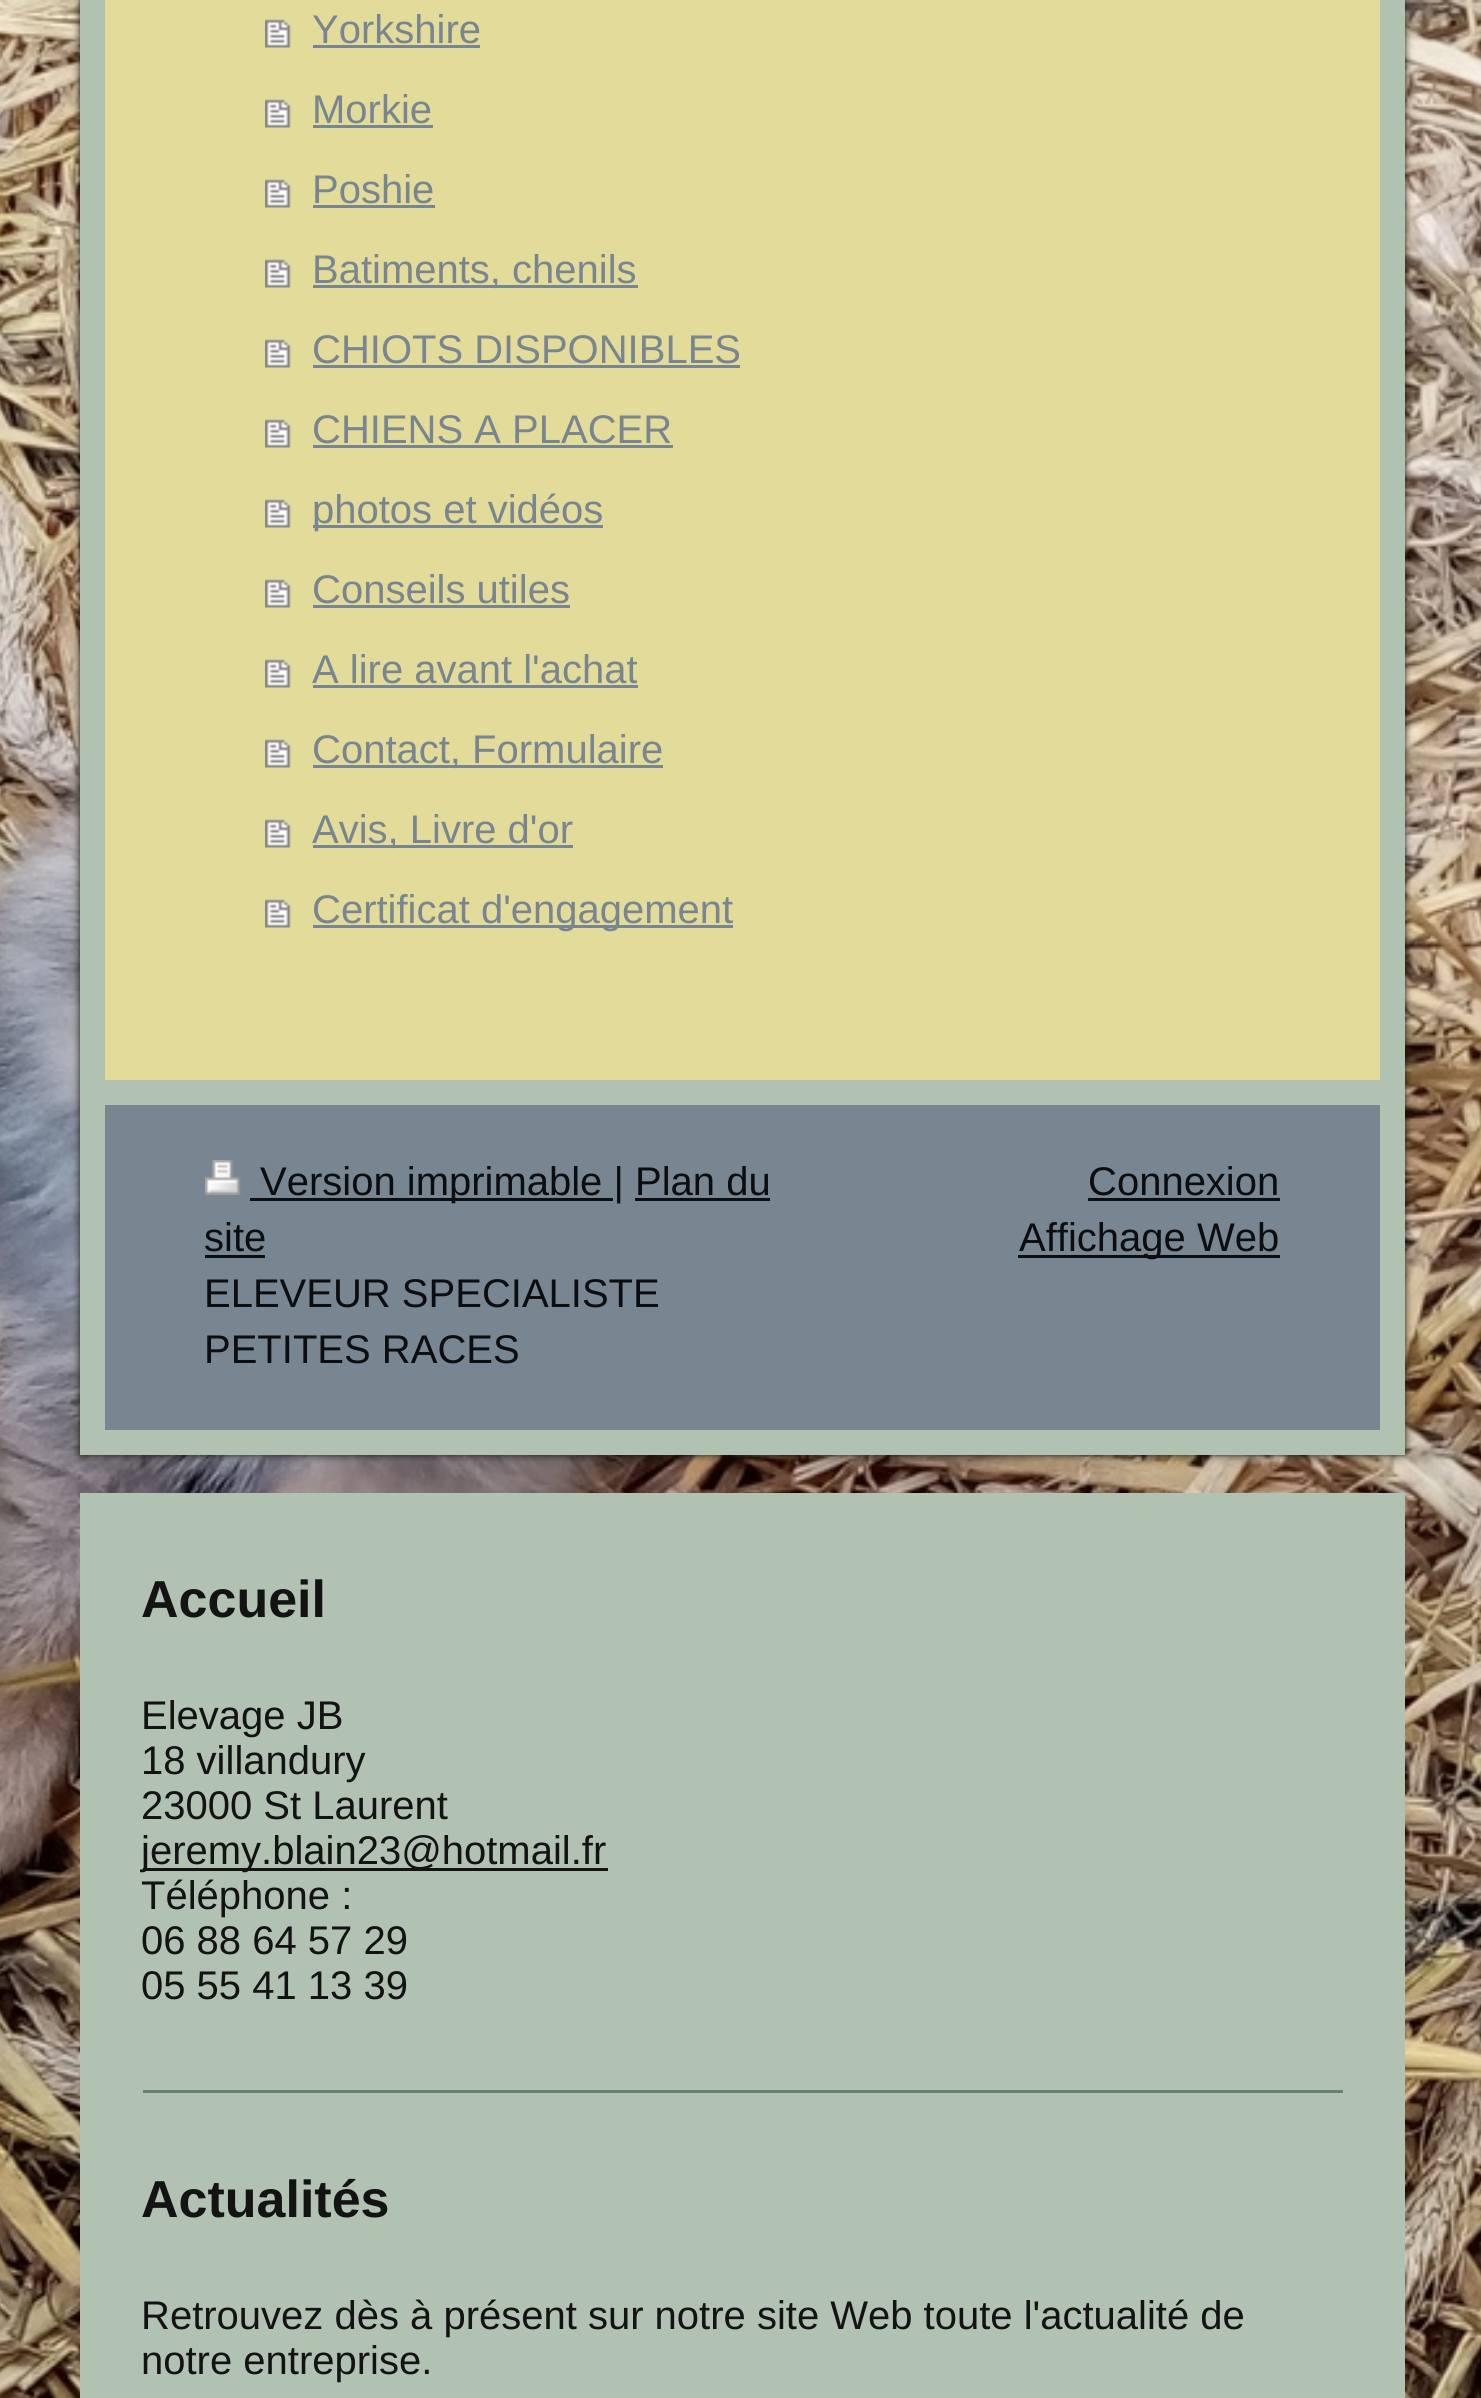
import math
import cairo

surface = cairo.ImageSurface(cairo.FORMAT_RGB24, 1481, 2398)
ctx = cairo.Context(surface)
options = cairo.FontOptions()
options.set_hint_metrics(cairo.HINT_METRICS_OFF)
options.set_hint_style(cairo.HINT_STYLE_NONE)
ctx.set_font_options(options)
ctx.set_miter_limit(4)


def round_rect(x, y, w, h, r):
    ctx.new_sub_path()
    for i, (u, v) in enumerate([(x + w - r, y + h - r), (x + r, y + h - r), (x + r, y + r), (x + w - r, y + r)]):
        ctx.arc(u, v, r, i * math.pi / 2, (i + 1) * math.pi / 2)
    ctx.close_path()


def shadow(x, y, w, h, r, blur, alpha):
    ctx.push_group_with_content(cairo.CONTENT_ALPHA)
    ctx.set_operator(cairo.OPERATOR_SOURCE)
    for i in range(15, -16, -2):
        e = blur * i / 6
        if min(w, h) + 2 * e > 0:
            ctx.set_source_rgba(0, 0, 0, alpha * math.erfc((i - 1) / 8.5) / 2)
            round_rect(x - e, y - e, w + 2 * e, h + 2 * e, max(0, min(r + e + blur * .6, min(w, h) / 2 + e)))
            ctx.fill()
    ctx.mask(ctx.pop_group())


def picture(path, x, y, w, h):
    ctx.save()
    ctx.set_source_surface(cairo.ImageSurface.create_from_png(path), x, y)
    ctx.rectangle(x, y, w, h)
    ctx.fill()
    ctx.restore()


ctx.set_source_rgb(1, 1, 1)
ctx.paint()
picture("img1.png", 0, 0, 1481, 2398)
ctx.set_source_rgb(0.09, 0.086, 0.059)
shadow(80, -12, 1325, 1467, 0, 4, 1)
ctx.set_source_rgb(0.89, 0.859, 0.604)
ctx.rectangle(105, 0, 1275, 1080)
ctx.fill()
ctx.set_source_rgb(0.694, 0.761, 0.702)
ctx.rectangle(1380, 0, 25, 1080)
ctx.fill()
ctx.rectangle(105, 1080, 1300, 25)
ctx.fill()
ctx.rectangle(80, 0, 25, 1455)
ctx.fill()
picture("img2.png", 265, 19, 26, 29)
ctx.select_font_face("Liberation Sans")
ctx.set_font_size(40)
ctx.set_source_rgb(0.467, 0.525, 0.569)
ctx.move_to(312, 43)
ctx.show_text("Yorkshire")
ctx.rectangle(313, 45, 167, 3)
ctx.fill()
picture("img2.png", 265, 99, 26, 29)
ctx.move_to(312, 123)
ctx.show_text("Morkie")
ctx.rectangle(313, 125, 120, 3)
ctx.fill()
picture("img2.png", 265, 179, 26, 29)
ctx.move_to(312, 203)
ctx.show_text("Poshie")
ctx.rectangle(313, 205, 122, 3)
ctx.fill()
picture("img3.png", 265, 259, 26, 29)
ctx.rectangle(313, 285, 325, 3)
ctx.fill()
ctx.move_to(312, 283)
ctx.show_text("Batiments, chenils")
picture("img2.png", 265, 339, 26, 29)
ctx.move_to(312, 363)
ctx.show_text("CHIOTS DISPONIBLES")
ctx.rectangle(313, 365, 427, 3)
ctx.fill()
picture("img2.png", 265, 419, 26, 29)
ctx.move_to(312, 443)
ctx.show_text("CHIENS A PLACER")
ctx.rectangle(313, 445, 360, 3)
ctx.fill()
picture("img2.png", 265, 499, 26, 29)
ctx.rectangle(313, 525, 290, 3)
ctx.fill()
ctx.move_to(312, 523)
ctx.show_text("photos et vidéos")
picture("img2.png", 265, 579, 26, 29)
ctx.move_to(312, 603)
ctx.show_text("Conseils utiles")
ctx.rectangle(313, 605, 257, 3)
ctx.fill()
picture("img2.png", 265, 659, 26, 29)
ctx.move_to(312, 683)
ctx.show_text("A lire avant l'achat")
ctx.rectangle(313, 685, 325, 3)
ctx.fill()
picture("img2.png", 265, 739, 26, 29)
ctx.rectangle(313, 765, 350, 3)
ctx.fill()
ctx.move_to(312, 763)
ctx.show_text("Contact, Formulaire")
picture("img2.png", 265, 819, 26, 29)
ctx.rectangle(313, 845, 260, 3)
ctx.fill()
ctx.move_to(312, 843)
ctx.show_text("Avis, Livre d'or")
picture("img2.png", 265, 899, 26, 29)
ctx.rectangle(313, 925, 420, 3)
ctx.fill()
ctx.move_to(312, 923)
ctx.show_text("Certificat d'engagement")
ctx.rectangle(105, 1105, 1275, 325)
ctx.fill()
ctx.set_source_rgb(0.694, 0.761, 0.702)
ctx.rectangle(1380, 1105, 25, 325)
ctx.fill()
ctx.rectangle(105, 1430, 1300, 25)
ctx.fill()
picture("img4.png", 205, 1160, 36, 35)
ctx.set_source_rgb(0.047, 0.051, 0.059)
ctx.rectangle(250, 1198, 363, 3)
ctx.fill()
ctx.move_to(260, 1195)
ctx.show_text("Version imprimable | Plan du")
ctx.move_to(204, 1251)
ctx.show_text("site")
ctx.rectangle(635, 1198, 135, 3)
ctx.fill()
ctx.rectangle(205, 1255, 60, 3)
ctx.fill()
ctx.move_to(204, 1307)
ctx.show_text("ELEVEUR SPECIALISTE")
ctx.move_to(204, 1363)
ctx.show_text("PETITES RACES")
ctx.move_to(1088, 1195)
ctx.show_text("Connexion")
ctx.rectangle(1088, 1198, 192, 3)
ctx.fill()
ctx.rectangle(1018, 1255, 262, 3)
ctx.fill()
ctx.move_to(1019, 1251)
ctx.show_text("Affichage Web")
ctx.set_source_rgb(0.694, 0.761, 0.702)
ctx.rectangle(80, 1493, 1325, 905)
ctx.fill()
ctx.select_font_face("Liberation Sans", cairo.FONT_SLANT_NORMAL, cairo.FONT_WEIGHT_BOLD)
ctx.set_font_size(52)
ctx.set_source_rgb(0.071, 0.075, 0.071)
ctx.move_to(141, 1617)
ctx.show_text("Accueil")
ctx.select_font_face("Liberation Sans")
ctx.set_font_size(40)
ctx.move_to(141, 1729)
ctx.show_text("Elevage JB")
ctx.move_to(141, 1774)
ctx.show_text("18 villandury")
ctx.move_to(141, 1819)
ctx.show_text("23000 St Laurent")
ctx.rectangle(143, 1868, 465, 3)
ctx.fill()
ctx.move_to(141, 1864)
ctx.show_text("jeremy.blain23@hotmail.fr")
ctx.move_to(141, 1909)
ctx.show_text("Téléphone :")
ctx.move_to(141, 1954)
ctx.show_text("06 88 64 57 29")
ctx.move_to(141, 1999)
ctx.show_text("05 55 41 13 39")
ctx.set_source_rgb(0.408, 0.506, 0.42)
ctx.rectangle(143, 2090, 1200, 3)
ctx.fill()
ctx.select_font_face("Liberation Sans", cairo.FONT_SLANT_NORMAL, cairo.FONT_WEIGHT_BOLD)
ctx.set_font_size(52)
ctx.set_source_rgb(0.071, 0.075, 0.071)
ctx.move_to(141, 2217)
ctx.show_text("Actualités")
ctx.select_font_face("Liberation Sans")
ctx.set_font_size(40)
ctx.move_to(141, 2329)
ctx.show_text("Retrouvez dès à présent sur notre site Web toute l'actualité de")
ctx.move_to(141, 2374)
ctx.show_text("notre entreprise.")
surface.write_to_png("page.png")
